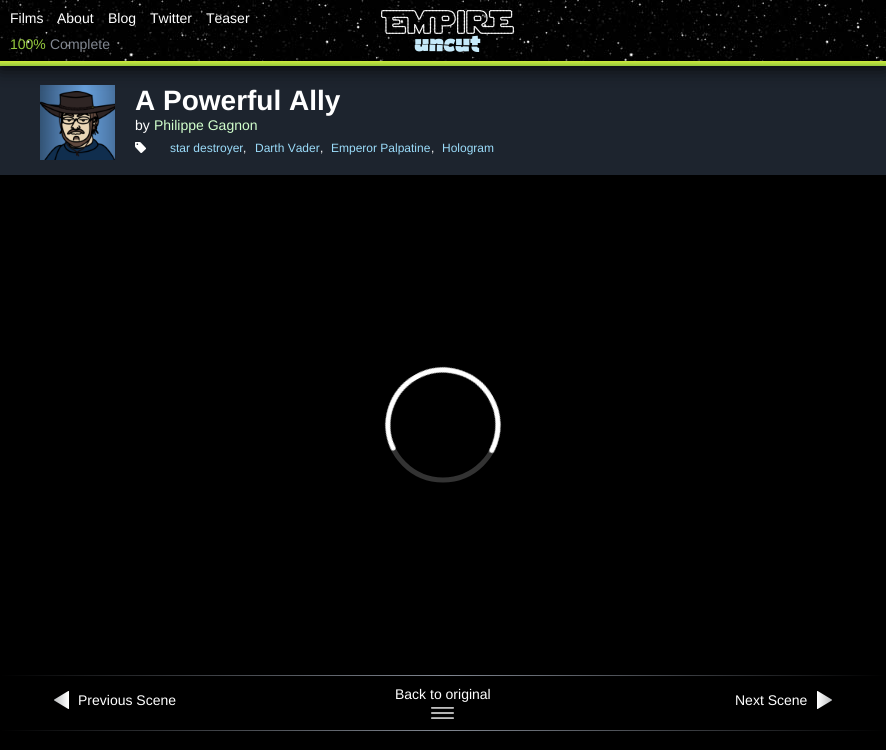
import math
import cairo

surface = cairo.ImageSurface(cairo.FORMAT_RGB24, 886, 750)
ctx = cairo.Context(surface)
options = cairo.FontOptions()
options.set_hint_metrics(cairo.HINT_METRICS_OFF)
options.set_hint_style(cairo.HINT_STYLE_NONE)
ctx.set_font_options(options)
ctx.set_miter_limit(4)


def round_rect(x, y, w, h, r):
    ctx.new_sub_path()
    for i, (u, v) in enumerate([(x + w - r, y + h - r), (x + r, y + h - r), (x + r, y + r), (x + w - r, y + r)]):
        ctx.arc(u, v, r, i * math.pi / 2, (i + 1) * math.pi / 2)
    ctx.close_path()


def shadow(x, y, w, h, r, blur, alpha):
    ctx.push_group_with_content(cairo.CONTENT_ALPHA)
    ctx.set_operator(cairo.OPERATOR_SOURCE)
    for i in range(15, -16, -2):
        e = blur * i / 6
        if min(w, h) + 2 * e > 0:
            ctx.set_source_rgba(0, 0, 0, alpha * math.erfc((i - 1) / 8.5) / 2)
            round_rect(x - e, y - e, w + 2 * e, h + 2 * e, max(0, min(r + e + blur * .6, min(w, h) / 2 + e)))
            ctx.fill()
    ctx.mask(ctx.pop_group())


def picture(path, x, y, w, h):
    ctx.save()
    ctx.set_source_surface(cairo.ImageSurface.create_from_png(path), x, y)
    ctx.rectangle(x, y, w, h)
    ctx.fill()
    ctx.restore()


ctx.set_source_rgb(0, 0, 0)
ctx.paint()
ctx.set_source_rgb(0.114, 0.141, 0.18)
ctx.rectangle(0, 66, 886, 109)
ctx.fill()
picture("img3.png", 40, 85, 75, 75)
ctx.set_source_rgb(0, 0, 0)
shadow(0, 0, 886, 66, 0, 10, 1)
picture("img1.png", 0, 0, 886, 61)
ctx.select_font_face("Liberation Sans")
ctx.set_font_size(14)
ctx.set_source_rgb(1, 1, 1)
ctx.move_to(10, 23)
ctx.show_text("Films")
ctx.move_to(57, 23)
ctx.show_text("About")
ctx.move_to(108, 23)
ctx.show_text("Blog")
ctx.move_to(150, 23)
ctx.show_text("Twitter")
ctx.move_to(206, 23)
ctx.show_text("Teaser")
picture("img2.png", 381, 10, 133, 42)
ctx.set_source_rgb(0.584, 0.788, 0.239)
ctx.move_to(10, 49)
ctx.show_text("100%")
ctx.set_source_rgb(0.506, 0.529, 0.569)
ctx.move_to(50, 49)
ctx.show_text("Complete")
gradient = cairo.LinearGradient(443, 61, 443, 66)
gradient.add_color_stop_rgba(0, 0.808, 0.918, 0.239, 1)
gradient.add_color_stop_rgba(1, 0.584, 0.788, 0.239, 1)
ctx.set_source(gradient)
ctx.rectangle(0, 61, 886, 5)
ctx.fill()
ctx.select_font_face("Liberation Sans", cairo.FONT_SLANT_NORMAL, cairo.FONT_WEIGHT_BOLD)
ctx.set_font_size(28)
ctx.set_source_rgb(1, 1, 1)
ctx.move_to(135, 110)
ctx.show_text("A Powerful Ally")
ctx.select_font_face("Liberation Sans")
ctx.set_font_size(14)
ctx.move_to(135, 130)
ctx.show_text("by")
ctx.set_source_rgb(0.82, 1, 0.8)
ctx.move_to(154, 130)
ctx.show_text("Philippe Gagnon")
picture("img4.png", 135, 142, 11, 11)
ctx.set_font_size(12)
ctx.set_source_rgb(0.604, 0.859, 0.976)
ctx.move_to(170, 152)
ctx.show_text("star destroyer")
ctx.set_source_rgb(1, 1, 1)
ctx.move_to(243, 152)
ctx.show_text(",")
ctx.set_source_rgb(0.604, 0.859, 0.976)
ctx.move_to(255, 152)
ctx.show_text("Darth Vader")
ctx.set_source_rgb(1, 1, 1)
ctx.move_to(320, 152)
ctx.show_text(",")
ctx.set_source_rgb(0.604, 0.859, 0.976)
ctx.move_to(331, 152)
ctx.show_text("Emperor Palpatine")
ctx.set_source_rgb(1, 1, 1)
ctx.move_to(431, 152)
ctx.show_text(",")
ctx.set_source_rgb(0.604, 0.859, 0.976)
ctx.move_to(442, 152)
ctx.show_text("Hologram")
picture("img5.png", 384, 366, 118, 117)
gradient = cairo.LinearGradient(0, 676, 886, 676)
gradient.add_color_stop_rgba(0, 0, 0, 0, 1)
gradient.add_color_stop_rgba(0.5, 0.506, 0.529, 0.569, 1)
gradient.add_color_stop_rgba(1, 0, 0, 0, 1)
ctx.set_source(gradient)
ctx.rectangle(0, 675, 886, 1)
ctx.fill()
picture("img6.png", 54, 691, 15, 18)
ctx.set_font_size(14)
ctx.set_source_rgb(1, 1, 1)
ctx.move_to(78, 705)
ctx.show_text("Previous Scene")
picture("img7.png", 431, 707, 23, 12)
ctx.move_to(395, 699)
ctx.show_text("Back to original")
ctx.move_to(735, 705)
ctx.show_text("Next Scene")
picture("img8.png", 817, 691, 15, 18)
gradient = cairo.LinearGradient(0, 731, 886, 731)
gradient.add_color_stop_rgba(0, 0, 0, 0, 1)
gradient.add_color_stop_rgba(0.5, 0.506, 0.529, 0.569, 1)
gradient.add_color_stop_rgba(1, 0, 0, 0, 1)
ctx.set_source(gradient)
ctx.rectangle(0, 730, 886, 1)
ctx.fill()
surface.write_to_png("page.png")
